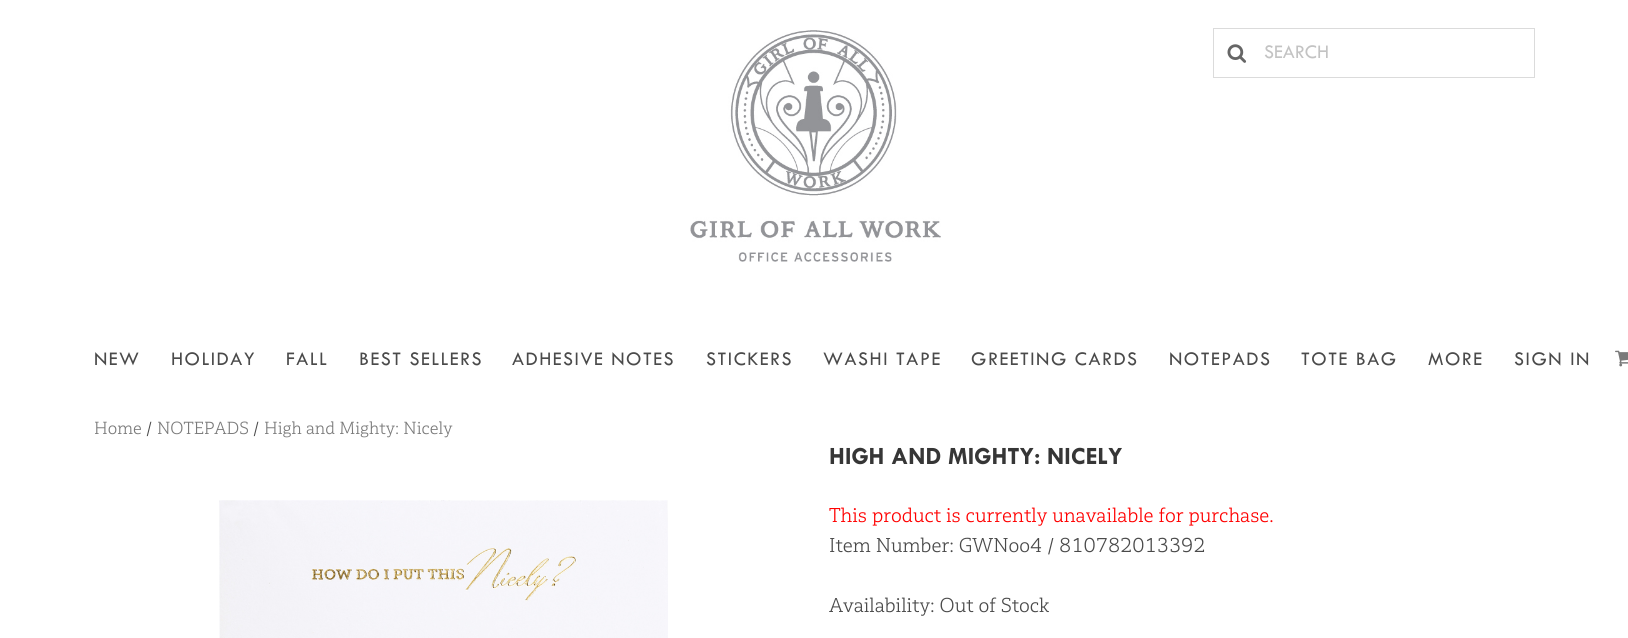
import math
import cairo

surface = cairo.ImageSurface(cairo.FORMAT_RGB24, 1628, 638)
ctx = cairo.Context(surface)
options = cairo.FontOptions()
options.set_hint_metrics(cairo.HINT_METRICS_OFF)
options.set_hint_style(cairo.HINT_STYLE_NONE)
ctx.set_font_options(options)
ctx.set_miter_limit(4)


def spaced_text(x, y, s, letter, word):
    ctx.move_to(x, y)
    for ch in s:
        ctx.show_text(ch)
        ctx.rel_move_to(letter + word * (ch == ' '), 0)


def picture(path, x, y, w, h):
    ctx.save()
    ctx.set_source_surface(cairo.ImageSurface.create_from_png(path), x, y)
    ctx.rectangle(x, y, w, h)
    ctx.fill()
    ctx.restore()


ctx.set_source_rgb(1, 1, 1)
ctx.paint()
picture("img1.png", 690, 30, 251, 232)
ctx.rectangle(1213.5, 28.5, 321, 49)
ctx.set_source_rgb(0.859, 0.859, 0.859)
ctx.set_line_width(1)
ctx.stroke()
picture("img2.png", 1227, 44, 20, 19)
ctx.select_font_face("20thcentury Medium")
ctx.set_font_size(20)
ctx.set_source_rgb(0.765, 0.765, 0.765)
ctx.move_to(1264, 58)
ctx.show_text("SEARCH")
ctx.set_source_rgb(0.29, 0.29, 0.29)
spaced_text(94, 365, "NEW", 1.5, 0)
spaced_text(171, 365, "HOLIDAY", 1.5, 0)
spaced_text(286, 365, "FALL", 1.5, 0)
spaced_text(359, 365, "BEST SELLERS", 1.5, 0)
spaced_text(512, 365, "ADHESIVE NOTES", 1.5, 0)
spaced_text(706, 365, "STICKERS", 1.5, 0)
spaced_text(823, 365, "WASHI TAPE", 1.5, 0)
spaced_text(971, 365, "GREETING CARDS", 1.5, 0)
spaced_text(1169, 365, "NOTEPADS", 1.5, 0)
spaced_text(1301, 365, "TOTE BAG", 1.5, 0)
spaced_text(1428, 365, "MORE", 1.5, 0)
spaced_text(1514, 365, "SIGN IN", 1.5, 0)
picture("img3.png", 1615, 350, 13, 17)
ctx.select_font_face("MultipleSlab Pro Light")
ctx.set_font_size(17.5)
ctx.set_source_rgb(0.478, 0.478, 0.478)
ctx.move_to(94, 434)
ctx.show_text("Home")
ctx.set_source_rgb(0.29, 0.29, 0.29)
ctx.move_to(146, 434)
ctx.show_text("/")
ctx.set_source_rgb(0.478, 0.478, 0.478)
ctx.move_to(157, 434)
ctx.show_text("NOTEPADS")
ctx.set_source_rgb(0.29, 0.29, 0.29)
ctx.move_to(253, 434)
ctx.show_text("/")
ctx.set_source_rgb(0.478, 0.478, 0.478)
ctx.move_to(264, 434)
ctx.show_text("High and Mighty: Nicely")
picture("img4.png", 219, 500, 449, 138)
ctx.select_font_face("20thcentury", cairo.FONT_SLANT_NORMAL, cairo.FONT_WEIGHT_BOLD)
ctx.set_font_size(25)
ctx.set_source_rgb(0.212, 0.212, 0.212)
ctx.move_to(829, 464)
ctx.show_text("HIGH AND MIGHTY: NICELY")
ctx.select_font_face("MultipleSlab Pro Light")
ctx.set_font_size(20)
ctx.set_source_rgb(1, 0, 0)
ctx.move_to(829, 522)
ctx.show_text("This product is currently unavailable for purchase.")
ctx.set_source_rgb(0.29, 0.29, 0.29)
ctx.move_to(829, 552)
ctx.show_text("Item Number: GWNoo4 / 810782013392")
ctx.move_to(829, 612)
ctx.show_text("Availability: Out of Stock")
surface.write_to_png("page.png")
